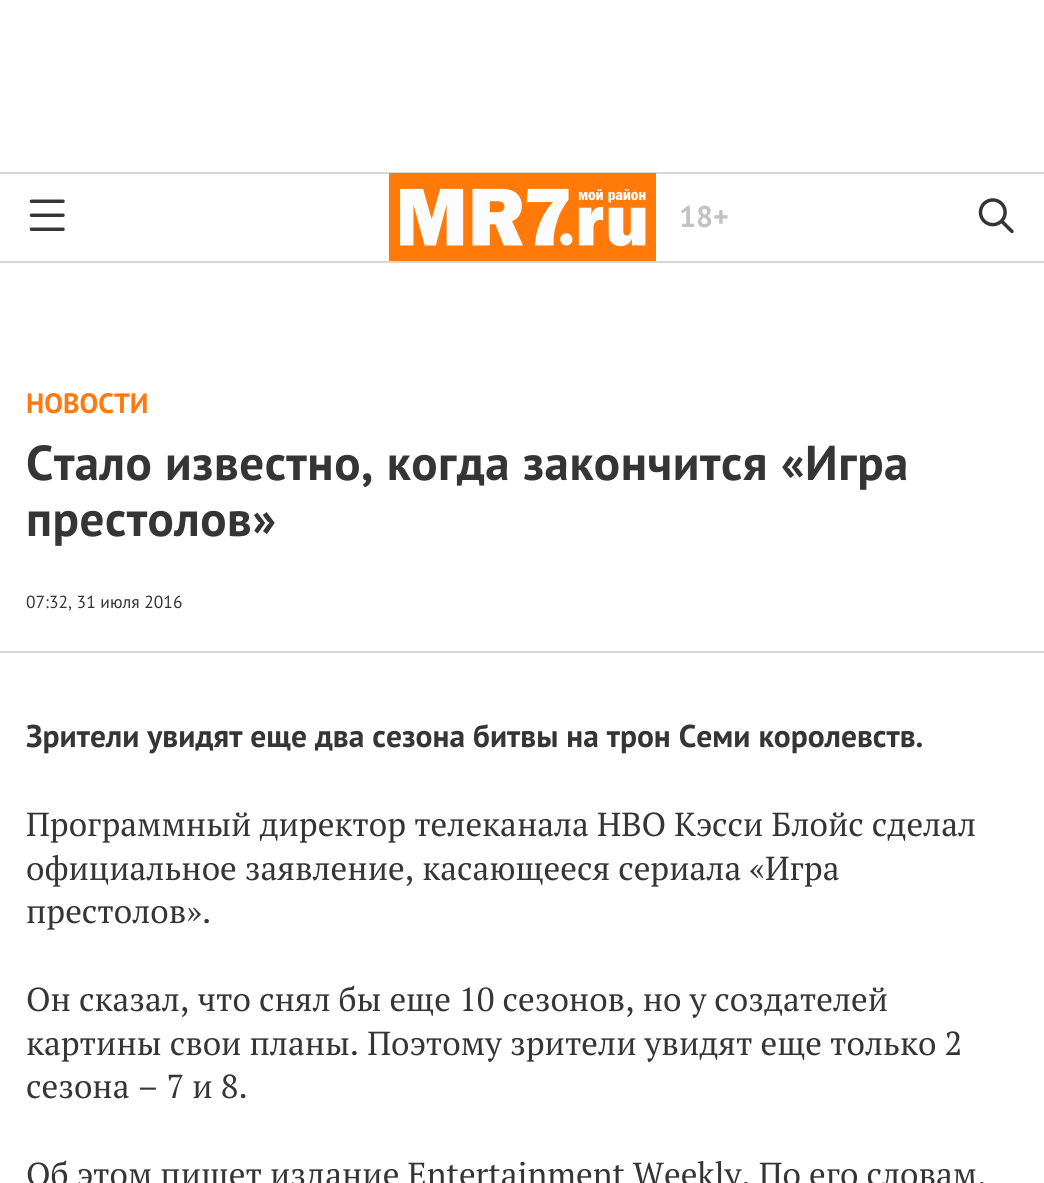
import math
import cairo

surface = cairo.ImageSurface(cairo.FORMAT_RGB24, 1044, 1183)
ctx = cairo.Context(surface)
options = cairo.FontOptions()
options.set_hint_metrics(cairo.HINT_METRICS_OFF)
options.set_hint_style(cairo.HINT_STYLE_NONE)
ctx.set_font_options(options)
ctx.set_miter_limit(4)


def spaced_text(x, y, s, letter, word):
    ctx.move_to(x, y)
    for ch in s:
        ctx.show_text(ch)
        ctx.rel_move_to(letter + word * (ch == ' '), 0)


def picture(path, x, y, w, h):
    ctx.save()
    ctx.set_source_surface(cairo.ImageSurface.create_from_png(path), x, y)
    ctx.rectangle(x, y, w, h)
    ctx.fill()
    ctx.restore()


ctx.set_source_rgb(1, 1, 1)
ctx.paint()
ctx.set_source_rgb(0.843, 0.843, 0.843)
ctx.rectangle(0, 172, 1044, 2)
ctx.fill()
ctx.rectangle(0, 261, 1044, 2)
ctx.fill()
picture("img1.png", 29, 199, 36, 32)
picture("img2.png", 389, 173, 267, 88)
ctx.select_font_face("PT Sans", cairo.FONT_SLANT_NORMAL, cairo.FONT_WEIGHT_BOLD)
ctx.set_font_size(30)
ctx.set_source_rgb(0.761, 0.761, 0.761)
ctx.move_to(679, 227)
ctx.show_text("18+")
picture("img3.png", 978, 198, 36, 36)
ctx.set_source_rgb(0.843, 0.843, 0.843)
ctx.rectangle(0, 651, 1044, 2)
ctx.fill()
ctx.set_font_size(28)
ctx.set_source_rgb(1, 0.475, 0.067)
ctx.move_to(26, 413)
ctx.show_text("НОВОСТИ")
ctx.set_font_size(49)
ctx.set_source_rgb(0.208, 0.208, 0.208)
spaced_text(26, 480, "Стало известно, когда закончится «Игра", 0.5, 0)
spaced_text(26, 536, "престолов»", 0.5, 0)
ctx.select_font_face("PT Sans")
ctx.set_font_size(17.5)
ctx.move_to(26, 608)
ctx.show_text("07:32, 31 июля 2016")
ctx.select_font_face("PT Sans", cairo.FONT_SLANT_NORMAL, cairo.FONT_WEIGHT_BOLD)
ctx.set_font_size(31.5)
ctx.move_to(26, 747)
ctx.show_text("Зрители увидят еще два сезона битвы на трон Семи королевств.")
ctx.select_font_face("PT Serif")
ctx.set_font_size(33.25)
ctx.move_to(26, 836)
ctx.show_text("Программный директор телеканала HBO Кэсси Блойс сделал")
ctx.move_to(26, 880)
ctx.show_text("официальное заявление, касающееся сериала «Игра")
ctx.move_to(26, 923)
ctx.show_text("престолов».")
ctx.move_to(26, 1011)
ctx.show_text("Он сказал, что снял бы еще 10 сезонов, но у создателей")
ctx.move_to(26, 1055)
ctx.show_text("картины свои планы. Поэтому зрители увидят еще только 2")
ctx.move_to(26, 1098)
ctx.show_text("сезона – 7 и 8.")
ctx.move_to(26, 1186)
ctx.show_text("Об этом пишет издание Entertainment Weekly. По его словам,")
surface.write_to_png("page.png")
